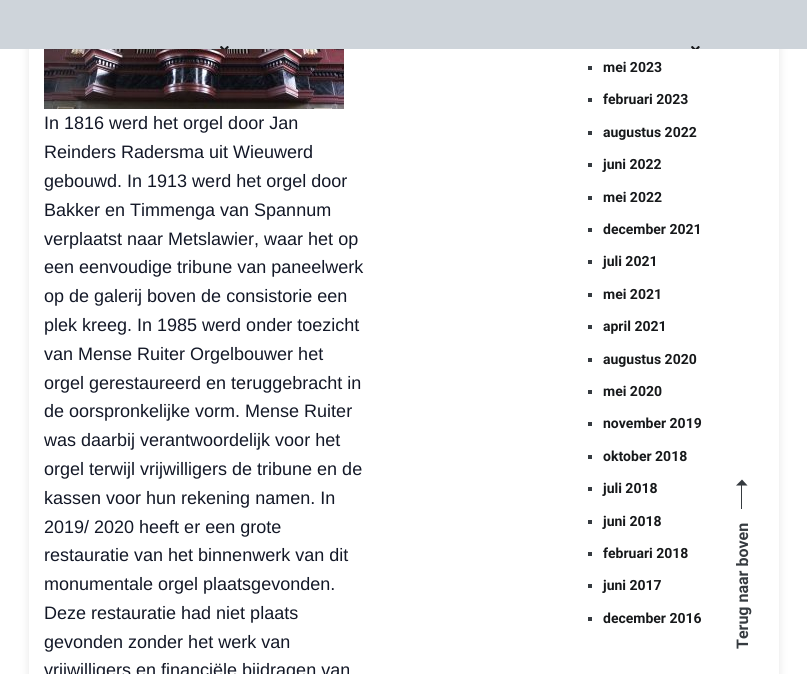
import math
import cairo

surface = cairo.ImageSurface(cairo.FORMAT_RGB24, 807, 674)
ctx = cairo.Context(surface)
options = cairo.FontOptions()
options.set_hint_metrics(cairo.HINT_METRICS_OFF)
options.set_hint_style(cairo.HINT_STYLE_NONE)
ctx.set_font_options(options)
ctx.set_miter_limit(4)


def round_rect(x, y, w, h, r):
    ctx.new_sub_path()
    for i, (u, v) in enumerate([(x + w - r, y + h - r), (x + r, y + h - r), (x + r, y + r), (x + w - r, y + r)]):
        ctx.arc(u, v, r, i * math.pi / 2, (i + 1) * math.pi / 2)
    ctx.close_path()


def shadow(x, y, w, h, r, blur, alpha):
    ctx.push_group_with_content(cairo.CONTENT_ALPHA)
    ctx.set_operator(cairo.OPERATOR_SOURCE)
    for i in range(15, -16, -2):
        e = blur * i / 6
        if min(w, h) + 2 * e > 0:
            ctx.set_source_rgba(0, 0, 0, alpha * math.erfc((i - 1) / 8.5) / 2)
            round_rect(x - e, y - e, w + 2 * e, h + 2 * e, max(0, min(r + e + blur * .6, min(w, h) / 2 + e)))
            ctx.fill()
    ctx.mask(ctx.pop_group())


def picture(path, x, y, w, h):
    ctx.save()
    ctx.set_source_surface(cairo.ImageSurface.create_from_png(path), x, y)
    ctx.rectangle(x, y, w, h)
    ctx.fill()
    ctx.restore()


ctx.set_source_rgb(1, 1, 1)
ctx.paint()
ctx.save()
ctx.set_fill_rule(cairo.FILL_RULE_EVEN_ODD)
ctx.new_path()
ctx.move_to(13, 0)
ctx.line_to(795, 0)
ctx.line_to(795, 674)
ctx.line_to(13, 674)
ctx.close_path()
ctx.move_to(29, -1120)
ctx.line_to(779, -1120)
ctx.line_to(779, 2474)
ctx.line_to(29, 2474)
ctx.close_path()
ctx.clip()
ctx.set_source_rgb(0, 0, 0)
shadow(29, -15, 750, 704, 0, 5, 0.1)
ctx.restore()
ctx.set_source_rgb(0.808, 0.831, 0.855)
ctx.rectangle(0, 0, 807, 49)
ctx.fill()
picture("img1.png", 220, 46, 9, 3)
picture("img1.png", 691, 46, 9, 3)
picture("img2.png", 44, 49, 300, 60)
ctx.select_font_face("Liberation Sans")
ctx.set_font_size(18)
ctx.set_source_rgb(0.078, 0.094, 0.153)
ctx.move_to(44, 129)
ctx.show_text("In 1816 werd het orgel door Jan")
ctx.move_to(44, 158)
ctx.show_text("Reinders Radersma uit Wieuwerd")
ctx.move_to(44, 187)
ctx.show_text("gebouwd. In 1913 werd het orgel door")
ctx.move_to(44, 216)
ctx.show_text("Bakker en Timmenga van Spannum")
ctx.move_to(44, 245)
ctx.show_text("verplaatst naar Metslawier, waar het op")
ctx.move_to(44, 273)
ctx.show_text("een eenvoudige tribune van paneelwerk")
ctx.move_to(44, 302)
ctx.show_text("op de galerij boven de consistorie een")
ctx.move_to(44, 331)
ctx.show_text("plek kreeg. In 1985 werd onder toezicht")
ctx.move_to(44, 360)
ctx.show_text("van Mense Ruiter Orgelbouwer het")
ctx.move_to(44, 389)
ctx.show_text("orgel gerestaureerd en teruggebracht in")
ctx.move_to(44, 417)
ctx.show_text("de oorspronkelijke vorm. Mense Ruiter")
ctx.move_to(44, 446)
ctx.show_text("was daarbij verantwoordelijk voor het")
ctx.move_to(44, 475)
ctx.show_text("orgel terwijl vrijwilligers de tribune en de")
ctx.move_to(44, 504)
ctx.show_text("kassen voor hun rekening namen. In")
ctx.move_to(44, 533)
ctx.show_text("2019/ 2020 heeft er een grote")
ctx.move_to(44, 561)
ctx.show_text("restauratie van het binnenwerk van dit")
ctx.move_to(44, 590)
ctx.show_text("monumentale orgel plaatsgevonden.")
ctx.move_to(44, 619)
ctx.show_text("Deze restauratie had niet plaats")
ctx.move_to(44, 648)
ctx.show_text("gevonden zonder het werk van")
ctx.move_to(44, 676)
ctx.show_text("vrijwilligers en financiële bijdragen van")
ctx.set_source_rgb(0.212, 0.231, 0.251)
ctx.rectangle(588, 66, 4, 4)
ctx.fill()
ctx.select_font_face("Roboto", cairo.FONT_SLANT_NORMAL, cairo.FONT_WEIGHT_BOLD)
ctx.set_font_size(14)
ctx.set_source_rgb(0.086, 0.094, 0.102)
ctx.move_to(603, 72)
ctx.show_text("mei 2023")
ctx.set_source_rgb(0.212, 0.231, 0.251)
ctx.rectangle(588, 98, 4, 4)
ctx.fill()
ctx.set_source_rgb(0.086, 0.094, 0.102)
ctx.move_to(603, 104)
ctx.show_text("februari 2023")
ctx.set_source_rgb(0.212, 0.231, 0.251)
ctx.rectangle(588, 131, 4, 4)
ctx.fill()
ctx.set_source_rgb(0.086, 0.094, 0.102)
ctx.move_to(603, 137)
ctx.show_text("augustus 2022")
ctx.set_source_rgb(0.212, 0.231, 0.251)
ctx.rectangle(588, 163, 4, 4)
ctx.fill()
ctx.set_source_rgb(0.086, 0.094, 0.102)
ctx.move_to(603, 169)
ctx.show_text("juni 2022")
ctx.set_source_rgb(0.212, 0.231, 0.251)
ctx.rectangle(588, 196, 4, 4)
ctx.fill()
ctx.set_source_rgb(0.086, 0.094, 0.102)
ctx.move_to(603, 202)
ctx.show_text("mei 2022")
ctx.set_source_rgb(0.212, 0.231, 0.251)
ctx.rectangle(588, 228, 4, 4)
ctx.fill()
ctx.set_source_rgb(0.086, 0.094, 0.102)
ctx.move_to(603, 234)
ctx.show_text("december 2021")
ctx.set_source_rgb(0.212, 0.231, 0.251)
ctx.rectangle(588, 260, 4, 4)
ctx.fill()
ctx.set_source_rgb(0.086, 0.094, 0.102)
ctx.move_to(603, 266)
ctx.show_text("juli 2021")
ctx.set_source_rgb(0.212, 0.231, 0.251)
ctx.rectangle(588, 293, 4, 4)
ctx.fill()
ctx.set_source_rgb(0.086, 0.094, 0.102)
ctx.move_to(603, 299)
ctx.show_text("mei 2021")
ctx.set_source_rgb(0.212, 0.231, 0.251)
ctx.rectangle(588, 325, 4, 4)
ctx.fill()
ctx.set_source_rgb(0.086, 0.094, 0.102)
ctx.move_to(603, 331)
ctx.show_text("april 2021")
ctx.set_source_rgb(0.212, 0.231, 0.251)
ctx.rectangle(588, 358, 4, 4)
ctx.fill()
ctx.set_source_rgb(0.086, 0.094, 0.102)
ctx.move_to(603, 364)
ctx.show_text("augustus 2020")
ctx.set_source_rgb(0.212, 0.231, 0.251)
ctx.rectangle(588, 390, 4, 4)
ctx.fill()
ctx.set_source_rgb(0.086, 0.094, 0.102)
ctx.move_to(603, 396)
ctx.show_text("mei 2020")
ctx.set_source_rgb(0.212, 0.231, 0.251)
ctx.rectangle(588, 422, 4, 4)
ctx.fill()
ctx.set_source_rgb(0.086, 0.094, 0.102)
ctx.move_to(603, 428)
ctx.show_text("november 2019")
ctx.set_source_rgb(0.212, 0.231, 0.251)
ctx.rectangle(588, 455, 4, 4)
ctx.fill()
ctx.set_source_rgb(0.086, 0.094, 0.102)
ctx.move_to(603, 461)
ctx.show_text("oktober 2018")
ctx.set_source_rgb(0.212, 0.231, 0.251)
ctx.rectangle(588, 487, 4, 4)
ctx.fill()
ctx.set_source_rgb(0.086, 0.094, 0.102)
ctx.move_to(603, 493)
ctx.show_text("juli 2018")
ctx.set_source_rgb(0.212, 0.231, 0.251)
ctx.rectangle(588, 520, 4, 4)
ctx.fill()
ctx.set_source_rgb(0.086, 0.094, 0.102)
ctx.move_to(603, 526)
ctx.show_text("juni 2018")
ctx.set_source_rgb(0.212, 0.231, 0.251)
ctx.rectangle(588, 552, 4, 4)
ctx.fill()
ctx.set_source_rgb(0.086, 0.094, 0.102)
ctx.move_to(603, 558)
ctx.show_text("februari 2018")
ctx.set_source_rgb(0.212, 0.231, 0.251)
ctx.rectangle(588, 584, 4, 4)
ctx.fill()
ctx.set_source_rgb(0.086, 0.094, 0.102)
ctx.move_to(603, 590)
ctx.show_text("juni 2017")
ctx.set_source_rgb(0.212, 0.231, 0.251)
ctx.rectangle(588, 617, 4, 4)
ctx.fill()
ctx.set_source_rgb(0.086, 0.094, 0.102)
ctx.move_to(603, 623)
ctx.show_text("december 2016")
ctx.set_source_rgb(0.212, 0.231, 0.251)
ctx.new_path()
ctx.move_to(742, 479.5)
ctx.line_to(747.5, 485.5)
ctx.line_to(736, 485.5)
ctx.close_path()
ctx.move_to(741, 509)
ctx.line_to(741, 485.5)
ctx.line_to(742, 485.5)
ctx.line_to(742, 509)
ctx.close_path()
ctx.fill()
ctx.set_font_size(16)
ctx.save()
ctx.translate(748, 649)
ctx.rotate(-90 * math.pi / 180)
ctx.move_to(0, 0)
ctx.show_text("Terug naar boven")
ctx.restore()
surface.write_to_png("page.png")
